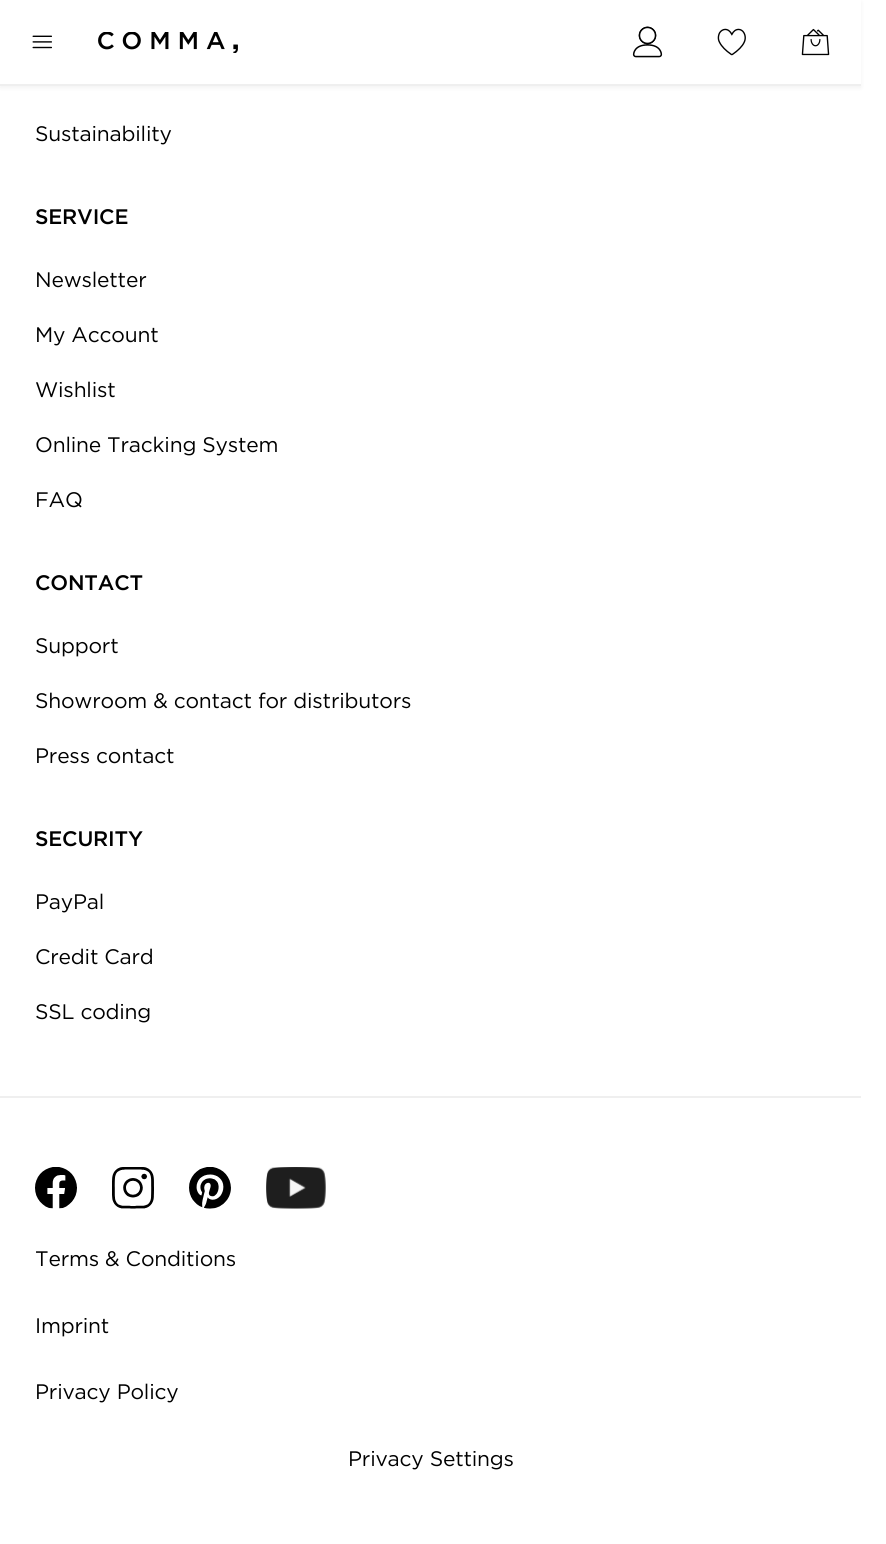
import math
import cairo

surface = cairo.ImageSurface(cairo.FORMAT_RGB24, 886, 1544)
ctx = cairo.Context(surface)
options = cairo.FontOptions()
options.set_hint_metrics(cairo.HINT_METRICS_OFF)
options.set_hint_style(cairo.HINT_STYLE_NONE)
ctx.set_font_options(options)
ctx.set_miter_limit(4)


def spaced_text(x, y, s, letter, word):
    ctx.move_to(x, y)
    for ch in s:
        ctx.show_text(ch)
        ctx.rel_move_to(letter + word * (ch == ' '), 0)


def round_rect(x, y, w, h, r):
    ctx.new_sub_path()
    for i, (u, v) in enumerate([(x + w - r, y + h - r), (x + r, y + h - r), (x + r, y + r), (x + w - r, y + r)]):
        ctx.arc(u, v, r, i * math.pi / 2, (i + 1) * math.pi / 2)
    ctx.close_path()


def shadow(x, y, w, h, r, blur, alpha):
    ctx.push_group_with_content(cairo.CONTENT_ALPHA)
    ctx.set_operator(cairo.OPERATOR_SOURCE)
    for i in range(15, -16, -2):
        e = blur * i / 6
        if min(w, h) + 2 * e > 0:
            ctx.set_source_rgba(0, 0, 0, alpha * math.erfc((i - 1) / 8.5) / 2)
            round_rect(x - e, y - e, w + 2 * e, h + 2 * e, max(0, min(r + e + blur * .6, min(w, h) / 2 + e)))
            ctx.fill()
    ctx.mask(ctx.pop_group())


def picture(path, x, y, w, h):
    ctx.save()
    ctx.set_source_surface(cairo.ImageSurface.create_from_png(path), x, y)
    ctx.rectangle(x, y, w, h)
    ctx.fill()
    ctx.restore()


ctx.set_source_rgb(1, 1, 1)
ctx.paint()
ctx.set_source_rgb(0, 0, 0)
shadow(0, 2, 861, 86, 0, 2, 0.05)
ctx.set_source_rgb(1, 1, 1)
ctx.rectangle(0, 0, 861, 84)
ctx.fill()
ctx.set_source_rgb(0.937, 0.937, 0.937)
ctx.rectangle(0, 84, 861, 2)
ctx.fill()
picture("img1.png", 32, 35, 20, 14)
picture("img2.png", 98, 32, 140, 21)
picture("img3.png", 632, 26, 31, 32)
picture("img4.png", 717, 28, 29, 28)
picture("img5.png", 801, 28, 29, 28)
ctx.select_font_face("Gotham")
ctx.set_font_size(21)
ctx.set_source_rgb(0, 0, 0)
spaced_text(35, 141, "Sustainability", -0.2, 0)
ctx.select_font_face("Gotham Medium")
spaced_text(35, 224, "SERVICE", -0.2, 0)
ctx.select_font_face("Gotham")
spaced_text(35, 287, "Newsletter", -0.2, 0)
spaced_text(35, 342, "My Account", -0.2, 0)
spaced_text(35, 397, "Wishlist", -0.2, 0)
spaced_text(35, 452, "Online Tracking System", -0.2, 0)
spaced_text(35, 507, "FAQ", -0.2, 0)
ctx.select_font_face("Gotham Medium")
spaced_text(35, 590, "CONTACT", -0.2, 0)
ctx.select_font_face("Gotham")
spaced_text(35, 653, "Support", -0.2, 0)
spaced_text(35, 708, "Showroom & contact for distributors", -0.2, 0)
spaced_text(35, 763, "Press contact", -0.2, 0)
ctx.select_font_face("Gotham Medium")
spaced_text(35, 846, "SECURITY", -0.2, 0)
ctx.select_font_face("Gotham")
spaced_text(35, 909, "PayPal", -0.2, 0)
spaced_text(35, 964, "Credit Card", -0.2, 0)
spaced_text(35, 1019, "SSL coding", -0.2, 0)
ctx.set_source_rgb(0.937, 0.937, 0.937)
ctx.rectangle(0, 1096, 861, 2)
ctx.fill()
picture("img6.png", 35, 1167, 42, 42)
picture("img7.png", 112, 1167, 42, 42)
picture("img8.png", 189, 1167, 42, 42)
picture("img9.png", 266, 1167, 60, 42)
ctx.set_source_rgb(0, 0, 0)
spaced_text(35, 1266, "Terms & Conditions", -0.2, 0)
spaced_text(35, 1333, "Imprint", -0.2, 0)
spaced_text(35, 1399, "Privacy Policy", -0.2, 0)
spaced_text(348, 1466, "Privacy Settings", -0.2, 0)
surface.write_to_png("page.png")
